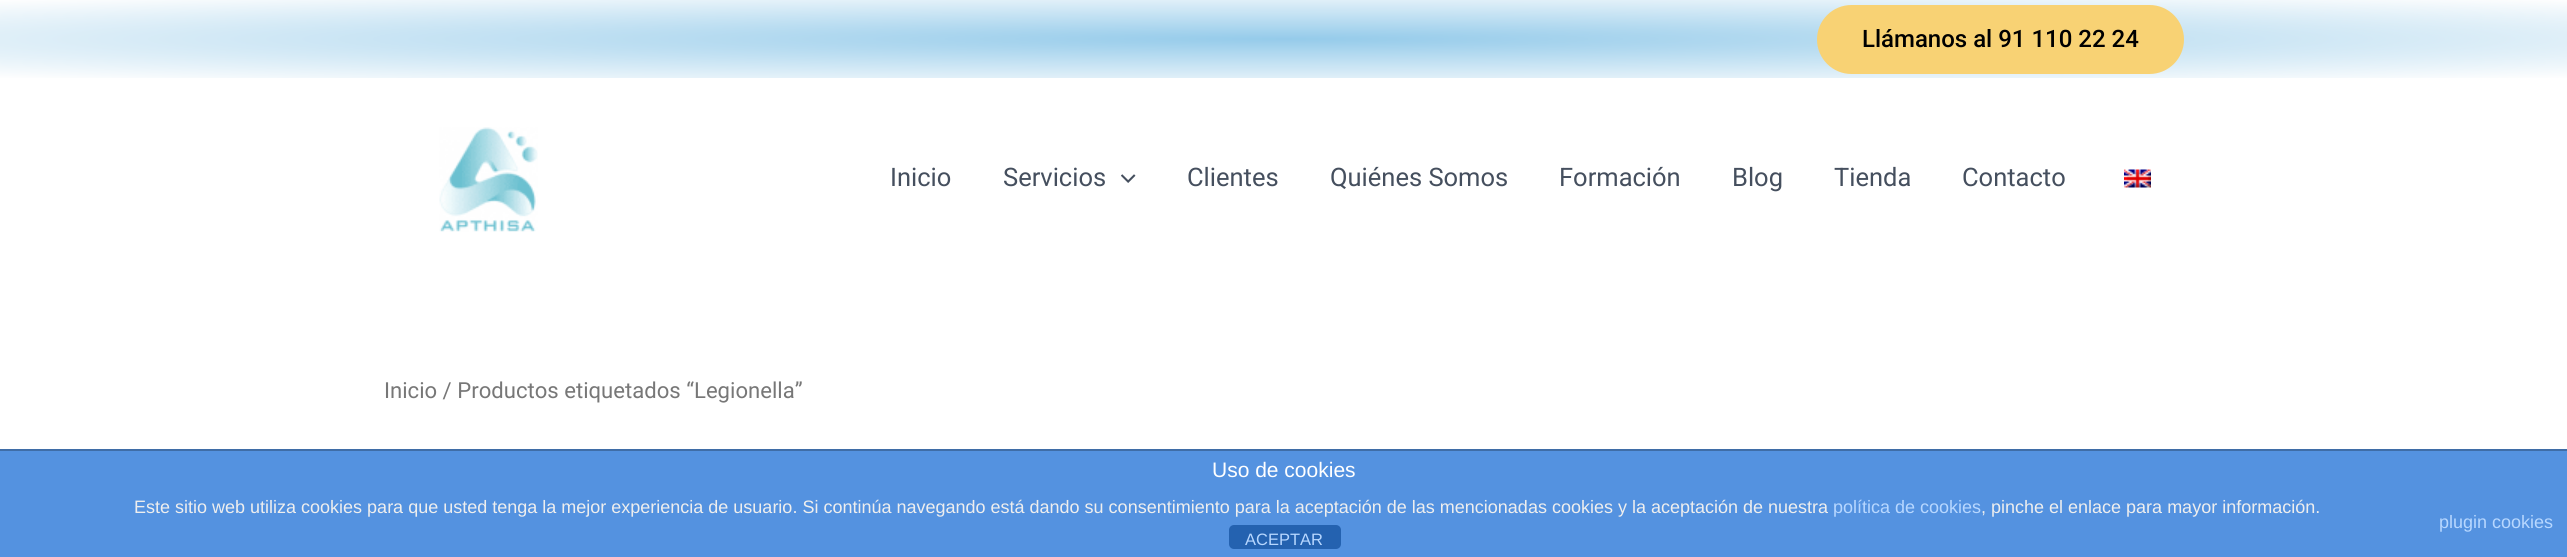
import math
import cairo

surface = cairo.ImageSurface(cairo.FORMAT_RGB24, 2567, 557)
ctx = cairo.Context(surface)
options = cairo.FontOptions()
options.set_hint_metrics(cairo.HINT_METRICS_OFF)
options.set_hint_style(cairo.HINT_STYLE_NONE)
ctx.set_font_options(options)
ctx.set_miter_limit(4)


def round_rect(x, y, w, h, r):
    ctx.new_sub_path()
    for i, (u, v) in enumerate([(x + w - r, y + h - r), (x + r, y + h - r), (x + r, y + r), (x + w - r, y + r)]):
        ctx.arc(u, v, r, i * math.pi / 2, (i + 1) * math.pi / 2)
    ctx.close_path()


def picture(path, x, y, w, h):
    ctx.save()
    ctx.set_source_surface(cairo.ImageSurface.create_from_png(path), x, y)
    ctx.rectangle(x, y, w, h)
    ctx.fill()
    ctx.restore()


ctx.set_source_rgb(1, 1, 1)
ctx.paint()
gradient = cairo.RadialGradient(0, 0, 0, 0, 0, 1)
gradient.set_matrix(cairo.Matrix(1 / 1816, 0, 0, 1 / 55, -1 * 1284 / 1816, -1 * 39 / 55))
gradient.add_color_stop_rgba(0, 0.584, 0.796, 0.918, 1)
gradient.add_color_stop_rgba(1, 0.996, 0.996, 0.996, 1)
ctx.set_source(gradient)
ctx.rectangle(0, 0, 2567, 78)
ctx.fill()
ctx.set_source_rgb(0.969, 0.824, 0.455)
round_rect(1817, 5, 367, 69, 34.5)
ctx.fill()
ctx.select_font_face("Roboto Medium")
ctx.set_font_size(24)
ctx.set_source_rgb(0, 0, 0)
ctx.move_to(1862, 47)
ctx.show_text("Llámanos al 91 110 22 24")
picture("img1.png", 439, 127, 99, 105)
ctx.select_font_face("Roboto")
ctx.set_font_size(25.5)
ctx.set_source_rgb(0.271, 0.31, 0.369)
ctx.move_to(890, 186)
ctx.show_text("Inicio")
ctx.move_to(1003, 186)
ctx.show_text("Servicios")
picture("img2.png", 1121, 174, 15, 9)
ctx.move_to(1187, 186)
ctx.show_text("Clientes")
ctx.move_to(1330, 186)
ctx.show_text("Quiénes Somos")
ctx.move_to(1559, 186)
ctx.show_text("Formación")
ctx.move_to(1732, 186)
ctx.show_text("Blog")
ctx.move_to(1834, 186)
ctx.show_text("Tienda")
ctx.move_to(1962, 186)
ctx.show_text("Contacto")
picture("img3.png", 2124, 169, 27, 19)
ctx.set_font_size(22.1)
ctx.set_source_rgb(0.467, 0.467, 0.467)
ctx.move_to(384, 398)
ctx.show_text("Inicio / Productos etiquetados “Legionella”")
ctx.set_source_rgb(0.329, 0.573, 0.878)
ctx.rectangle(0, 451, 2567, 106)
ctx.fill()
ctx.set_source_rgb(0.247, 0.427, 0.655)
ctx.rectangle(0, 449, 2567, 2)
ctx.fill()
ctx.select_font_face("Liberation Sans")
ctx.set_font_size(21)
ctx.set_source_rgb(1, 1, 1)
ctx.move_to(1212, 477)
ctx.show_text("Uso de cookies")
ctx.set_font_size(18)
ctx.set_source_rgb(0.933, 0.933, 0.933)
ctx.move_to(134, 513)
ctx.show_text("Este sitio web utiliza cookies para que usted tenga la mejor experiencia de usuario. Si continúa navegando está dando su consentimiento para la aceptación de las mencionadas cookies y la aceptación de nuestra")
ctx.set_source_rgb(0.718, 0.843, 1)
ctx.move_to(1833, 513)
ctx.show_text("política de cookies")
ctx.set_source_rgb(0.933, 0.933, 0.933)
ctx.move_to(1981, 513)
ctx.show_text(", pinche el enlace para mayor información.")
ctx.set_source_rgb(0.718, 0.843, 1)
ctx.move_to(2439, 528)
ctx.show_text("plugin cookies")
ctx.set_source_rgb(0.141, 0.384, 0.69)
round_rect(1229, 525, 112, 24, 5)
ctx.fill()
ctx.set_font_size(16.5)
ctx.set_source_rgb(0.718, 0.843, 1)
ctx.move_to(1245, 545)
ctx.show_text("ACEPTAR")
surface.write_to_png("page.png")
